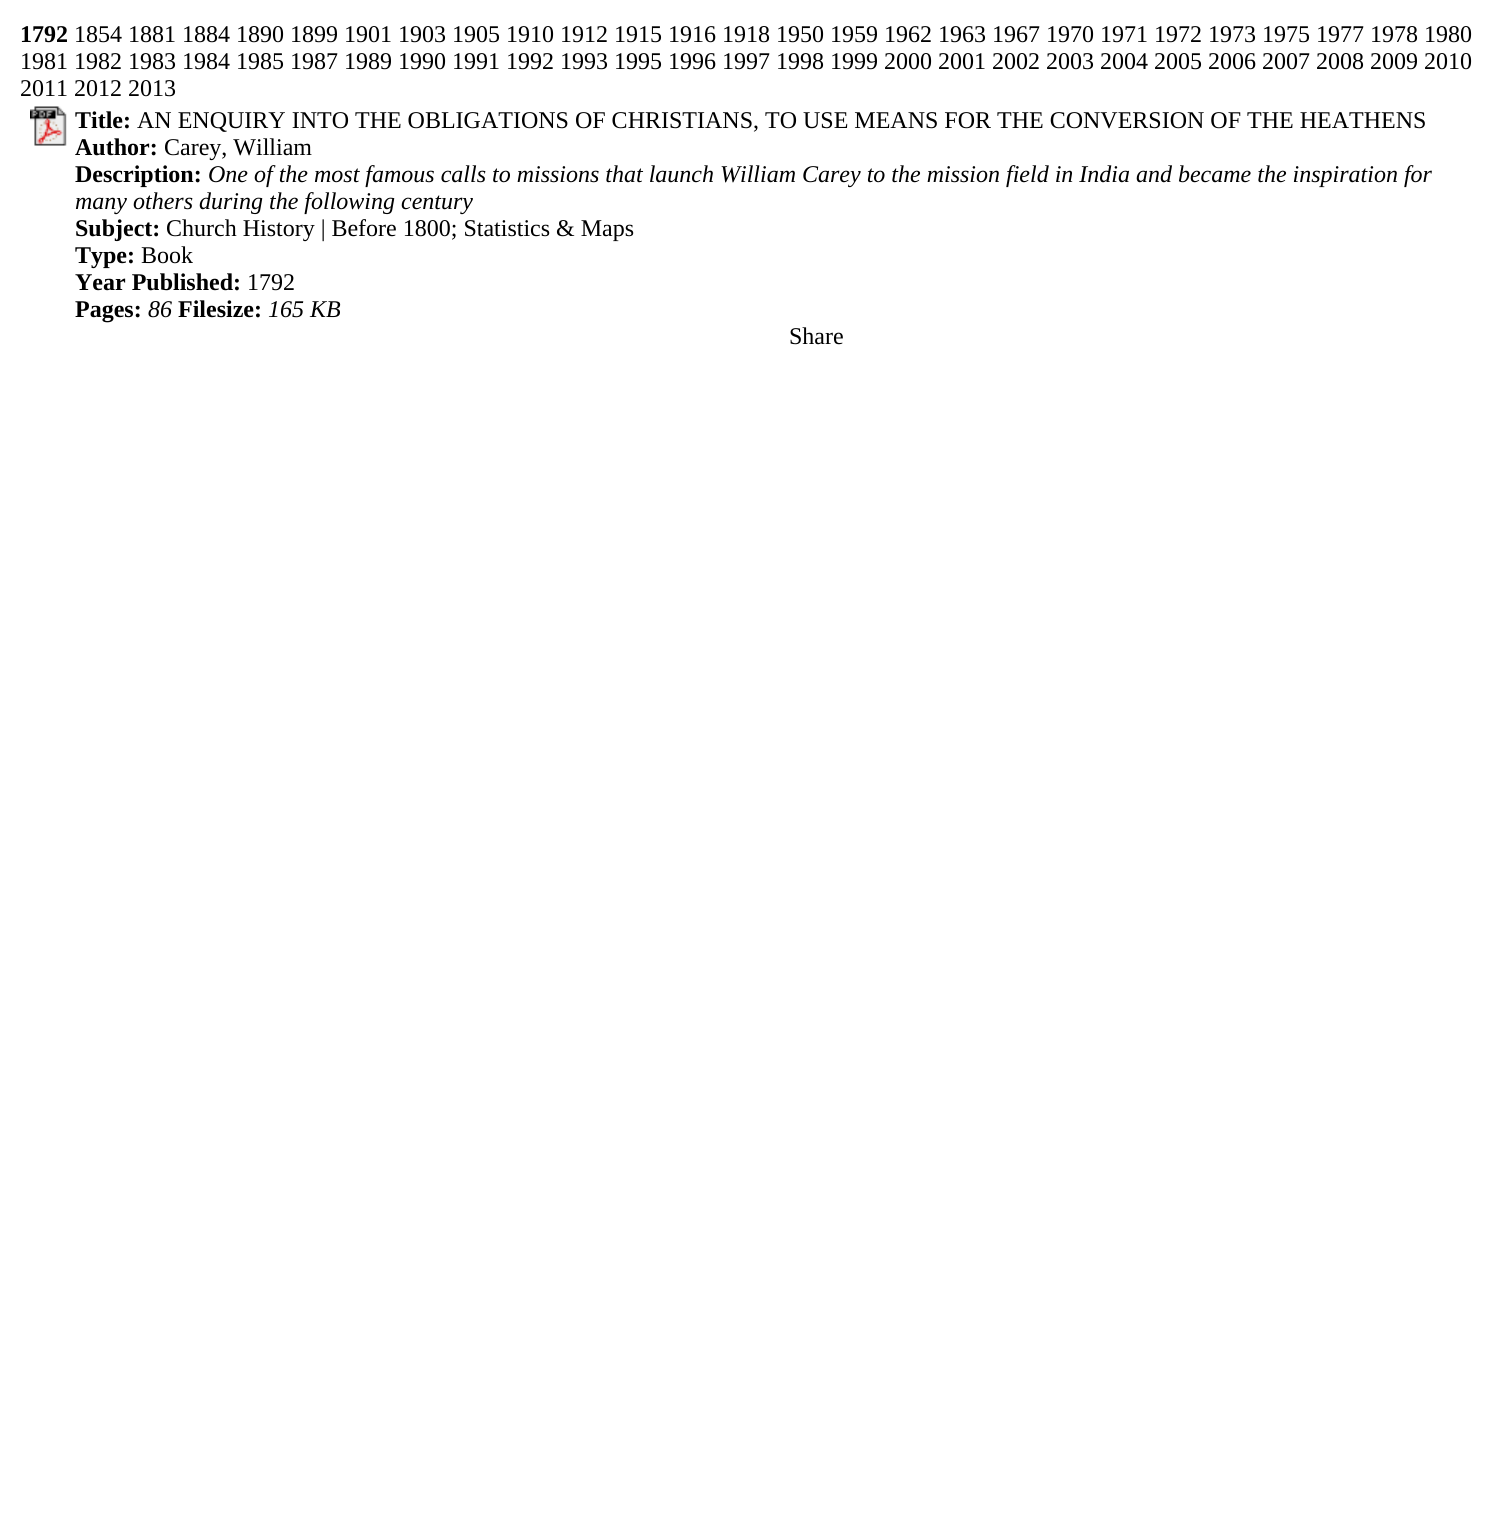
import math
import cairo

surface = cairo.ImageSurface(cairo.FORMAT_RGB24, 1507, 1537)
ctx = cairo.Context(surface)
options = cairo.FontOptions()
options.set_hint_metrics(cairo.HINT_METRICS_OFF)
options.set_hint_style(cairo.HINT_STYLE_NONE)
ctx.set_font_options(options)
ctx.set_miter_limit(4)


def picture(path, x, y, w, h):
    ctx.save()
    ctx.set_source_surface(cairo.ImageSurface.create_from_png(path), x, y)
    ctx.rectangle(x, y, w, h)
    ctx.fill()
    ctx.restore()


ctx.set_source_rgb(1, 1, 1)
ctx.paint()
ctx.select_font_face("Liberation Serif", cairo.FONT_SLANT_NORMAL, cairo.FONT_WEIGHT_BOLD)
ctx.set_font_size(24)
ctx.set_source_rgb(0, 0, 0)
ctx.move_to(20, 42)
ctx.show_text("1792")
ctx.select_font_face("Liberation Serif")
ctx.move_to(74, 42)
ctx.show_text("1854 1881 1884 1890 1899 1901 1903 1905 1910 1912 1915 1916 1918 1950 1959 1962 1963 1967 1970 1971 1972 1973 1975 1977 1978 1980")
ctx.move_to(20, 69)
ctx.show_text("1981 1982 1983 1984 1985 1987 1989 1990 1991 1992 1993 1995 1996 1997 1998 1999 2000 2001 2002 2003 2004 2005 2006 2007 2008 2009 2010")
ctx.move_to(20, 96)
ctx.show_text("2011 2012 2013")
picture("img1.png", 30, 106, 37, 40)
ctx.select_font_face("Liberation Serif", cairo.FONT_SLANT_NORMAL, cairo.FONT_WEIGHT_BOLD)
ctx.move_to(75, 128)
ctx.show_text("Title:")
ctx.select_font_face("Liberation Serif")
ctx.move_to(137, 128)
ctx.show_text("AN ENQUIRY INTO THE OBLIGATIONS OF CHRISTIANS, TO USE MEANS FOR THE CONVERSION OF THE HEATHENS")
ctx.select_font_face("Liberation Serif", cairo.FONT_SLANT_NORMAL, cairo.FONT_WEIGHT_BOLD)
ctx.move_to(75, 155)
ctx.show_text("Author:")
ctx.select_font_face("Liberation Serif")
ctx.move_to(164, 155)
ctx.show_text("Carey, William")
ctx.select_font_face("Liberation Serif", cairo.FONT_SLANT_NORMAL, cairo.FONT_WEIGHT_BOLD)
ctx.move_to(75, 182)
ctx.show_text("Description:")
ctx.select_font_face("Liberation Serif", cairo.FONT_SLANT_ITALIC)
ctx.move_to(208, 182)
ctx.show_text("One of the most famous calls to missions that launch William Carey to the mission field in India and became the inspiration for")
ctx.move_to(75, 209)
ctx.show_text("many others during the following century")
ctx.select_font_face("Liberation Serif", cairo.FONT_SLANT_NORMAL, cairo.FONT_WEIGHT_BOLD)
ctx.move_to(75, 236)
ctx.show_text("Subject:")
ctx.select_font_face("Liberation Serif")
ctx.move_to(166, 236)
ctx.show_text("Church History | Before 1800; Statistics & Maps")
ctx.select_font_face("Liberation Serif", cairo.FONT_SLANT_NORMAL, cairo.FONT_WEIGHT_BOLD)
ctx.move_to(75, 263)
ctx.show_text("Type:")
ctx.select_font_face("Liberation Serif")
ctx.move_to(141, 263)
ctx.show_text("Book")
ctx.select_font_face("Liberation Serif", cairo.FONT_SLANT_NORMAL, cairo.FONT_WEIGHT_BOLD)
ctx.move_to(75, 290)
ctx.show_text("Year Published:")
ctx.select_font_face("Liberation Serif")
ctx.move_to(247, 290)
ctx.show_text("1792")
ctx.select_font_face("Liberation Serif", cairo.FONT_SLANT_NORMAL, cairo.FONT_WEIGHT_BOLD)
ctx.move_to(75, 317)
ctx.show_text("Pages:")
ctx.select_font_face("Liberation Serif", cairo.FONT_SLANT_ITALIC)
ctx.move_to(148, 317)
ctx.show_text("86")
ctx.select_font_face("Liberation Serif", cairo.FONT_SLANT_NORMAL, cairo.FONT_WEIGHT_BOLD)
ctx.move_to(178, 317)
ctx.show_text("Filesize:")
ctx.select_font_face("Liberation Serif", cairo.FONT_SLANT_ITALIC)
ctx.move_to(268, 317)
ctx.show_text("165 KB")
ctx.select_font_face("Liberation Serif")
ctx.move_to(789, 344)
ctx.show_text("Share")
surface.write_to_png("page.png")
